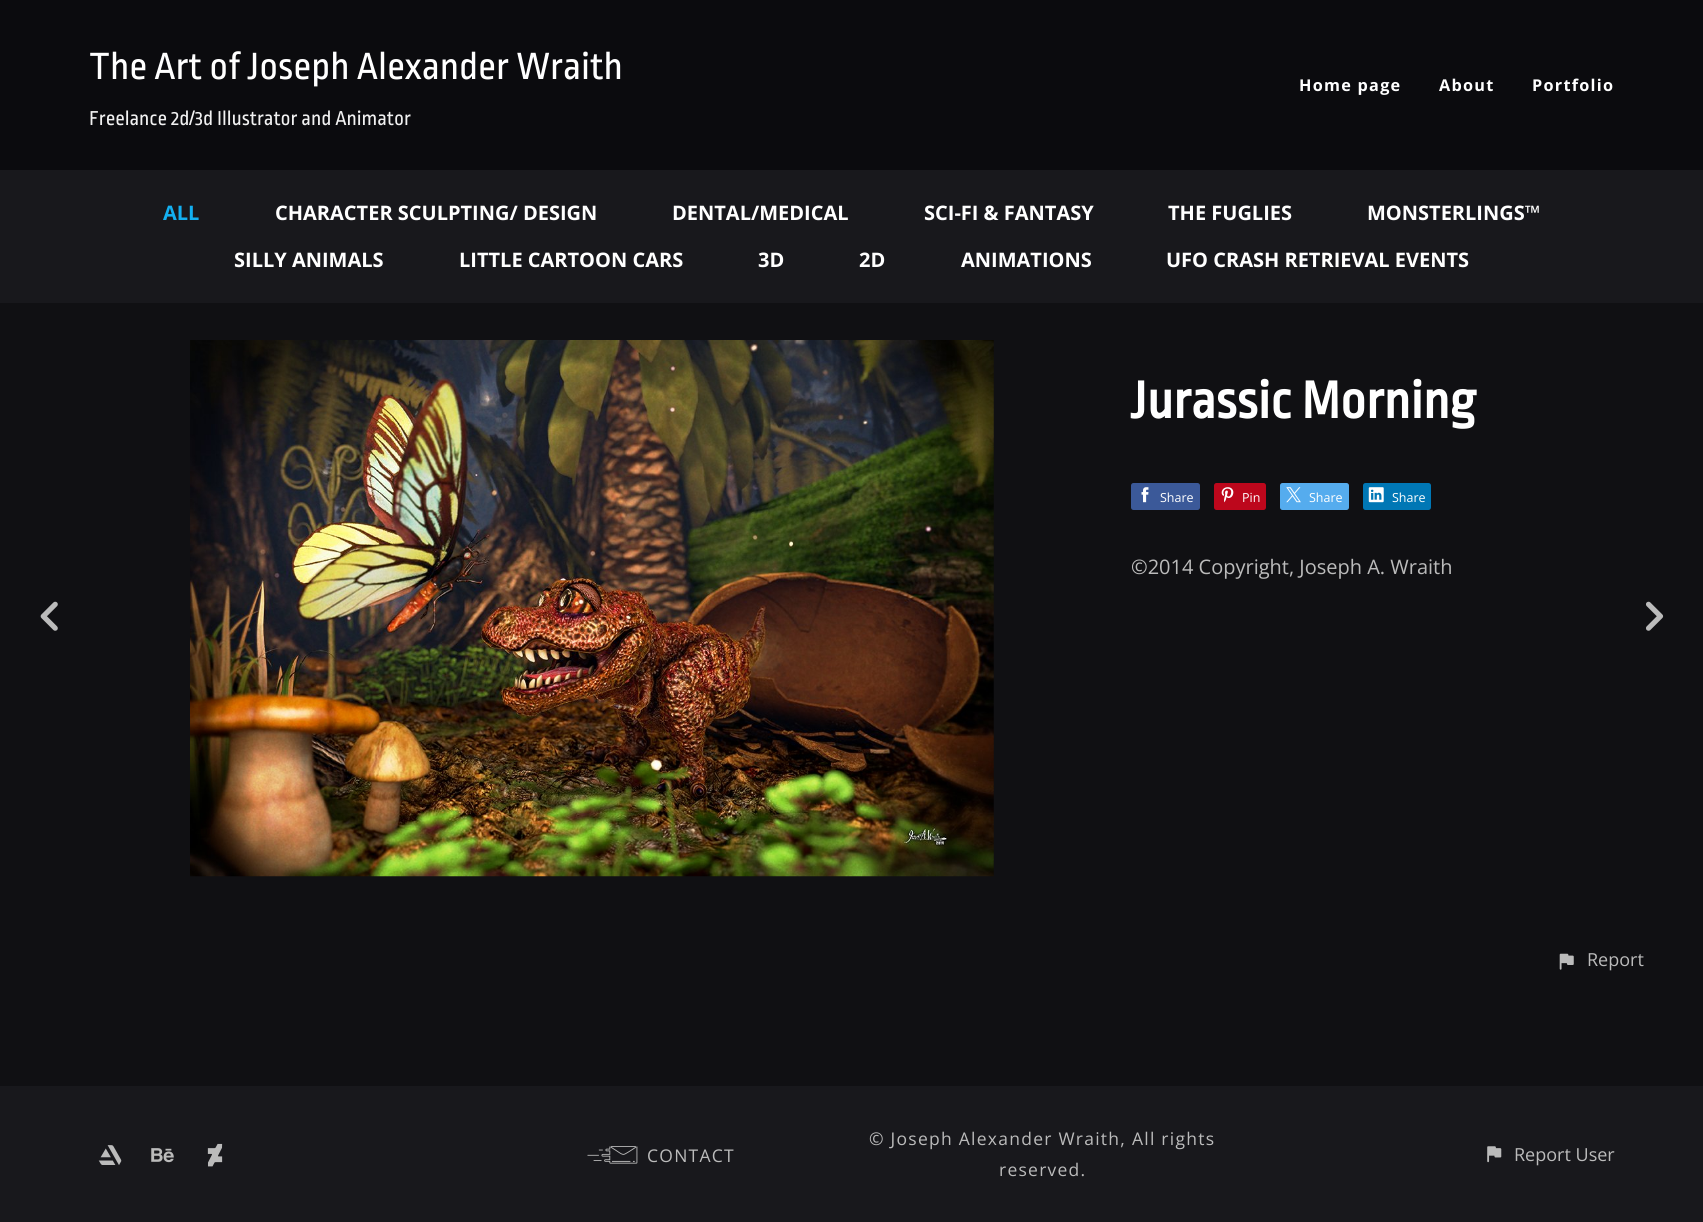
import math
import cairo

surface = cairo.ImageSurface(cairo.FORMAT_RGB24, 1703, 1222)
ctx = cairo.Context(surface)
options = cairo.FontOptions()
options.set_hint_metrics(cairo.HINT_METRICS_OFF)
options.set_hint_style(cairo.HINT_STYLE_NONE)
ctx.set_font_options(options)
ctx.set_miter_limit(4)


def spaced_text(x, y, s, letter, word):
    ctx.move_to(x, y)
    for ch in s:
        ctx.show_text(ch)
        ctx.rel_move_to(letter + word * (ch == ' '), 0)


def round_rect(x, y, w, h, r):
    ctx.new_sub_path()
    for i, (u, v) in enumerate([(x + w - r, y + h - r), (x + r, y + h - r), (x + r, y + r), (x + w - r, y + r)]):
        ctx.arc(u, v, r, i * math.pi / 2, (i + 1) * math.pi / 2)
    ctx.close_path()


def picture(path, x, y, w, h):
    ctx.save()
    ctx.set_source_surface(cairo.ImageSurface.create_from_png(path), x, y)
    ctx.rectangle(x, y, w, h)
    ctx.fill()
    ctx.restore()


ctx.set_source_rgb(0.063, 0.063, 0.078)
ctx.paint()
ctx.set_source_rgb(0.043, 0.043, 0.055)
ctx.rectangle(0, 0, 1703, 170)
ctx.fill()
ctx.select_font_face("Ropa Sans")
ctx.set_font_size(40)
ctx.set_source_rgb(1, 1, 1)
ctx.move_to(89, 79)
ctx.show_text("The Art of Joseph Alexander Wraith")
ctx.set_font_size(21.25)
ctx.set_source_rgb(0.945, 0.945, 0.945)
ctx.move_to(89, 125)
ctx.show_text("Freelance 2d/3d Illustrator and Animator")
ctx.select_font_face("Open Sans", cairo.FONT_SLANT_NORMAL, cairo.FONT_WEIGHT_BOLD)
ctx.set_font_size(16.25)
ctx.set_source_rgb(1, 1, 1)
spaced_text(1299, 91, "Home page", 1.25, 0)
spaced_text(1439, 91, "About", 1.25, 0)
spaced_text(1532, 91, "Portfolio", 1.25, 0)
ctx.set_source_rgb(0.094, 0.094, 0.11)
ctx.rectangle(0, 170, 1703, 133)
ctx.fill()
ctx.set_font_size(20)
ctx.set_source_rgb(0.075, 0.686, 0.941)
ctx.move_to(163, 220)
ctx.show_text("ALL")
ctx.set_source_rgb(1, 1, 1)
ctx.move_to(275, 220)
ctx.show_text("CHARACTER SCULPTING/ DESIGN")
ctx.move_to(672, 220)
ctx.show_text("DENTAL/MEDICAL")
ctx.move_to(924, 220)
ctx.show_text("SCI-FI & FANTASY")
ctx.move_to(1168, 220)
ctx.show_text("THE FUGLIES")
ctx.move_to(1367, 220)
ctx.show_text("MONSTERLINGS™")
ctx.move_to(234, 267)
ctx.show_text("SILLY ANIMALS")
ctx.move_to(459, 267)
ctx.show_text("LITTLE CARTOON CARS")
ctx.move_to(758, 267)
ctx.show_text("3D")
ctx.move_to(859, 267)
ctx.show_text("2D")
ctx.move_to(961, 267)
ctx.show_text("ANIMATIONS")
ctx.move_to(1166, 267)
ctx.show_text("UFO CRASH RETRIEVAL EVENTS")
picture("img1.png", 40, 601, 18, 30)
picture("img2.png", 190, 340, 804, 537)
ctx.select_font_face("Ropa Sans", cairo.FONT_SLANT_NORMAL, cairo.FONT_WEIGHT_BOLD)
ctx.set_font_size(55)
ctx.move_to(1131, 418)
ctx.show_text("Jurassic Morning")
ctx.set_source_rgb(0.231, 0.349, 0.6)
round_rect(1131, 483, 69, 27, 2.5)
ctx.fill()
picture("img3.png", 1141, 487, 8, 16)
ctx.select_font_face("Open Sans")
ctx.set_font_size(12.5)
ctx.set_source_rgb(1, 1, 1)
ctx.move_to(1160, 502)
ctx.show_text("Share")
ctx.set_source_rgb(0.741, 0.031, 0.11)
round_rect(1214, 483, 52, 27, 2.5)
ctx.fill()
picture("img4.png", 1221, 487, 13, 16)
ctx.set_source_rgb(1, 1, 1)
ctx.move_to(1242, 502)
ctx.show_text("Pin")
ctx.set_source_rgb(0.333, 0.675, 0.933)
round_rect(1280, 483, 69, 27, 2.5)
ctx.fill()
picture("img5.png", 1286, 487, 15, 16)
ctx.set_source_rgb(1, 1, 1)
ctx.move_to(1309, 502)
ctx.show_text("Share")
ctx.set_source_rgb(0, 0.467, 0.71)
round_rect(1363, 483, 68, 27, 2.5)
ctx.fill()
picture("img6.png", 1368, 487, 16, 16)
ctx.set_source_rgb(1, 1, 1)
ctx.move_to(1392, 502)
ctx.show_text("Share")
ctx.set_font_size(20)
ctx.set_source_rgb(0.733, 0.733, 0.733)
ctx.move_to(1131, 574)
ctx.show_text("©2014 Copyright, Joseph A. Wraith")
picture("img7.png", 1559, 953, 15, 17)
ctx.set_font_size(18)
ctx.move_to(1587, 966)
ctx.show_text("Report")
picture("img8.png", 1646, 601, 18, 30)
ctx.set_source_rgb(0.094, 0.094, 0.11)
ctx.rectangle(0, 1086, 1703, 136)
ctx.fill()
picture("img9.png", 98, 1145, 24, 20)
picture("img10.png", 151, 1148, 23, 15)
picture("img11.png", 207, 1143, 16, 24)
picture("img12.png", 587, 1146, 51, 18)
ctx.set_font_size(17.5)
ctx.set_source_rgb(0.733, 0.733, 0.733)
spaced_text(647, 1162, "CONTACT", 1.25, 0)
spaced_text(869, 1145, "© Joseph Alexander Wraith, All rights", 1.25, 0)
spaced_text(999, 1176, "reserved.", 1.25, 0)
picture("img13.png", 1487, 1146, 15, 17)
ctx.set_font_size(18)
ctx.move_to(1514, 1161)
ctx.show_text("Report User")
surface.write_to_png("page.png")
